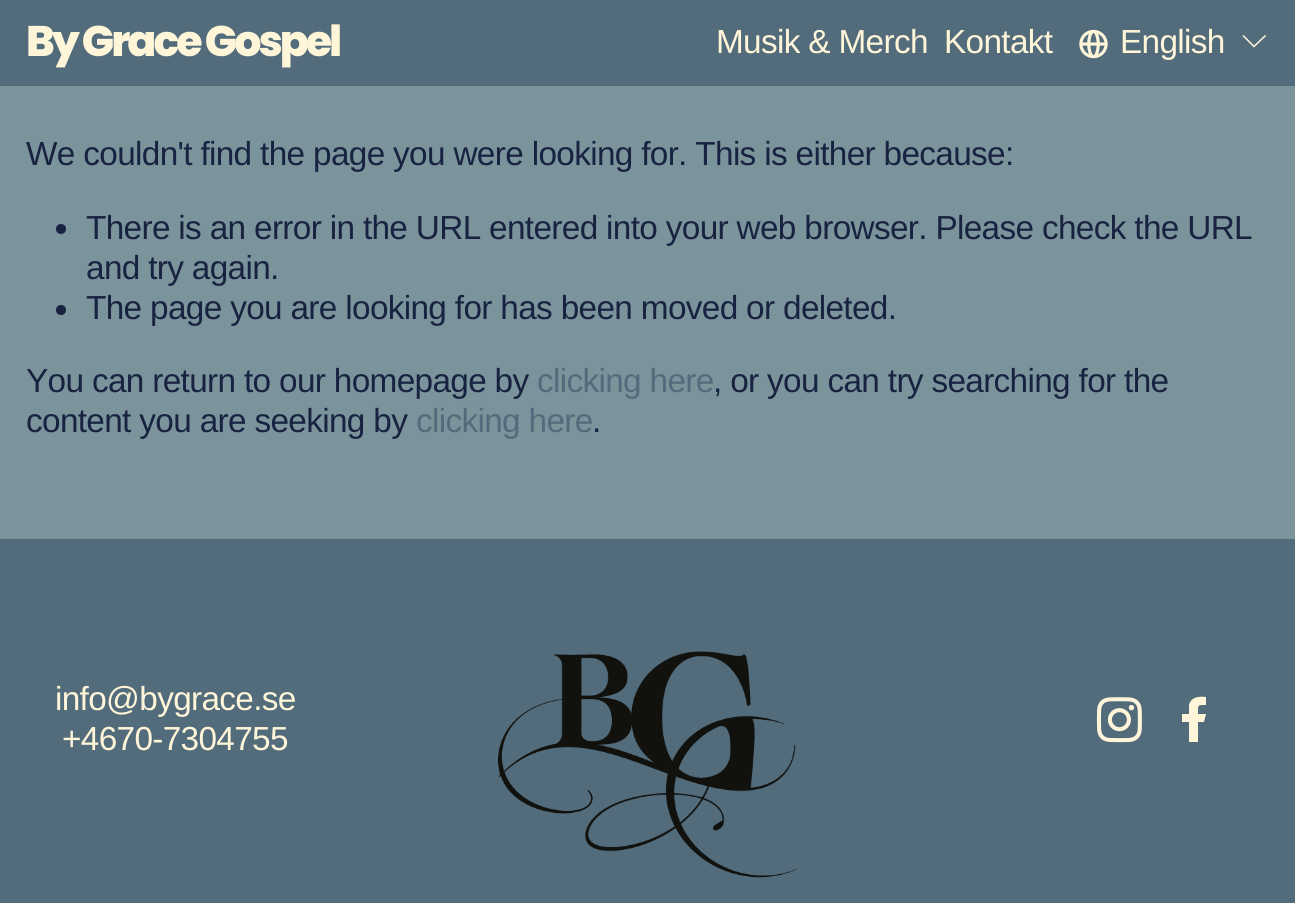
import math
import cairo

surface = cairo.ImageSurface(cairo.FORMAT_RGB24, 1295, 903)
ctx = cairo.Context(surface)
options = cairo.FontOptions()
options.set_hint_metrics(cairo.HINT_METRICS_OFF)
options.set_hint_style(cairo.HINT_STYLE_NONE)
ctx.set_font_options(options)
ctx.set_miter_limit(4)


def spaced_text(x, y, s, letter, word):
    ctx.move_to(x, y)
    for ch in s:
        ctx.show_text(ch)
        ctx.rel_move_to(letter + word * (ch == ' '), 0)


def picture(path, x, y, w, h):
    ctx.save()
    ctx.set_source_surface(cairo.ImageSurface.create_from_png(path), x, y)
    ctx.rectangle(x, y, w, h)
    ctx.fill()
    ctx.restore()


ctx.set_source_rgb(0.482, 0.58, 0.612)
ctx.paint()
ctx.set_source_rgb(0.325, 0.424, 0.486)
ctx.rectangle(0, 0, 1295, 86)
ctx.fill()
ctx.select_font_face("Poppins ExtraBold")
ctx.set_font_size(42.75)
ctx.set_source_rgb(1, 0.961, 0.851)
spaced_text(26, 56, "By Grace Gospel", -3, 0)
ctx.select_font_face("Liberation Sans")
ctx.set_font_size(33.35)
spaced_text(716, 53, "Musik & Merch", -0.67, 0)
spaced_text(944, 53, "Kontakt", -0.67, 0)
picture("img1.png", 1079, 29, 29, 30)
spaced_text(1120, 53, "English", -0.67, 0)
ctx.new_path()
ctx.move_to(1265, 36)
ctx.line_to(1254, 46.5)
ctx.line_to(1243.5, 36)
ctx.set_line_width(1.5)
ctx.set_line_cap(cairo.LINE_CAP_SQUARE)
ctx.stroke()
ctx.set_source_rgb(0.094, 0.133, 0.255)
spaced_text(26, 165, "We couldn't find the page you were looking for. This is either because:", -0.67, 0)
ctx.new_path()
ctx.arc(61, 229, 5, 0, 2 * math.pi)
ctx.fill()
spaced_text(86, 239, "There is an error in the URL entered into your web browser. Please check the URL", -0.67, 0)
spaced_text(86, 279, "and try again.", -0.67, 0)
ctx.new_path()
ctx.arc(61, 310, 5, 0, 2 * math.pi)
ctx.fill()
spaced_text(86, 319, "The page you are looking for has been moved or deleted.", -0.67, 0)
spaced_text(26, 392, "You can return to our homepage by", -0.67, 0)
ctx.set_source_rgb(0.325, 0.424, 0.486)
spaced_text(537, 392, "clicking here", -0.67, 0)
ctx.set_source_rgb(0.094, 0.133, 0.255)
spaced_text(713, 392, ", or you can try searching for the", -0.67, 0)
spaced_text(26, 432, "content you are seeking by", -0.67, 0)
ctx.set_source_rgb(0.325, 0.424, 0.486)
spaced_text(416, 432, "clicking here", -0.67, 0)
ctx.set_source_rgb(0.094, 0.133, 0.255)
spaced_text(592, 432, ".", -0.67, 0)
ctx.set_source_rgb(0.325, 0.424, 0.486)
ctx.rectangle(0, 539, 1295, 364)
ctx.fill()
ctx.set_source_rgb(1, 0.961, 0.851)
spaced_text(55, 710, "info@bygrace.se", -0.67, 0)
spaced_text(62, 750, "+4670-7304755", -0.67, 0)
picture("img2.png", 498, 651, 300, 227)
picture("img3.png", 1096, 697, 46, 46)
ctx.new_path()
ctx.move_to(1198, 742)
ctx.line_to(1198, 722)
ctx.line_to(1204, 722)
ctx.line_to(1206, 714)
ctx.line_to(1198, 714)
ctx.curve_to(1198, 705, 1197, 705, 1206, 705)
ctx.line_to(1206, 697)
ctx.curve_to(1199, 696, 1191, 697, 1189, 705)
ctx.line_to(1189, 714)
ctx.line_to(1182, 714)
ctx.line_to(1182, 722)
ctx.line_to(1189, 722)
ctx.line_to(1189, 742)
ctx.close_path()
ctx.fill()
surface.write_to_png("page.png")
